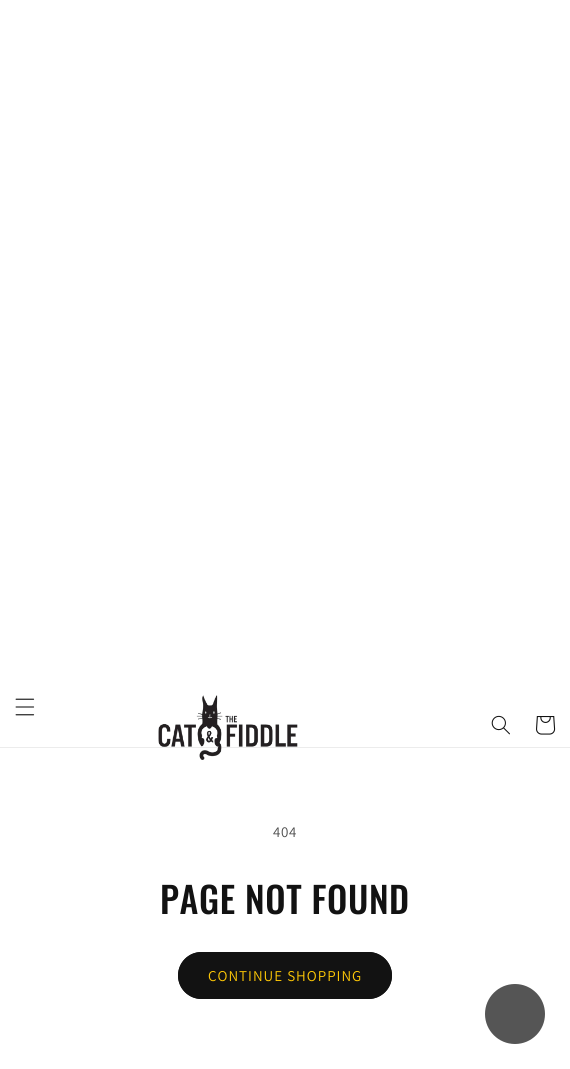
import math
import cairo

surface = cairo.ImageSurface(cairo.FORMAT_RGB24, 570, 1069)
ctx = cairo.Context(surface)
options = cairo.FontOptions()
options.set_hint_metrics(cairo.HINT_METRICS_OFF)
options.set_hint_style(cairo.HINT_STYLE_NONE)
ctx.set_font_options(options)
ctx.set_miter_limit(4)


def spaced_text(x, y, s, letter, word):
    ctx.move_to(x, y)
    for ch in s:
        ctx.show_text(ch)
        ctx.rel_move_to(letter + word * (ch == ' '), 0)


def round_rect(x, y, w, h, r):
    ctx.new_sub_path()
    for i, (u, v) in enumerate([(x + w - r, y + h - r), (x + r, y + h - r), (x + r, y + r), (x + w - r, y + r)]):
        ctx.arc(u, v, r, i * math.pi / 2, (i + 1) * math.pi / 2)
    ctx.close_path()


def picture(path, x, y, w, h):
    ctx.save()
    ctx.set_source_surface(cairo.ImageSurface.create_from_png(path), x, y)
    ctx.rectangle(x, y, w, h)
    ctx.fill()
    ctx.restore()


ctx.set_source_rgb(1, 1, 1)
ctx.paint()
ctx.set_source_rgb(0.925, 0.925, 0.925)
ctx.rectangle(0, 747, 570, 1)
ctx.fill()
picture("img1.png", 15, 698, 20, 18)
picture("img2.png", 158, 695, 140, 65)
picture("img3.png", 491, 715, 19, 20)
picture("img4.png", 536, 716, 20, 19)
ctx.select_font_face("Assistant")
ctx.set_font_size(15)
ctx.set_source_rgb(0.302, 0.302, 0.302)
spaced_text(273, 837, "404", 0.6, 0)
ctx.select_font_face("Oswald Medium")
ctx.set_font_size(36)
ctx.set_source_rgb(0.071, 0.071, 0.071)
spaced_text(160, 914, "PAGE NOT FOUND", 0.6, 0)
round_rect(178, 952, 214, 47, 23.5)
ctx.fill()
round_rect(178.5, 952.5, 213, 46, 23)
ctx.set_line_width(1)
ctx.stroke()
ctx.select_font_face("Assistant")
ctx.set_font_size(15)
ctx.set_source_rgb(1, 0.784, 0.02)
spaced_text(208, 981, "CONTINUE SHOPPING", 1, 0)
ctx.set_source_rgb(0.333, 0.333, 0.333)
ctx.new_path()
ctx.arc(515, 1014, 30, 0, 2 * math.pi)
ctx.fill()
surface.write_to_png("page.png")
